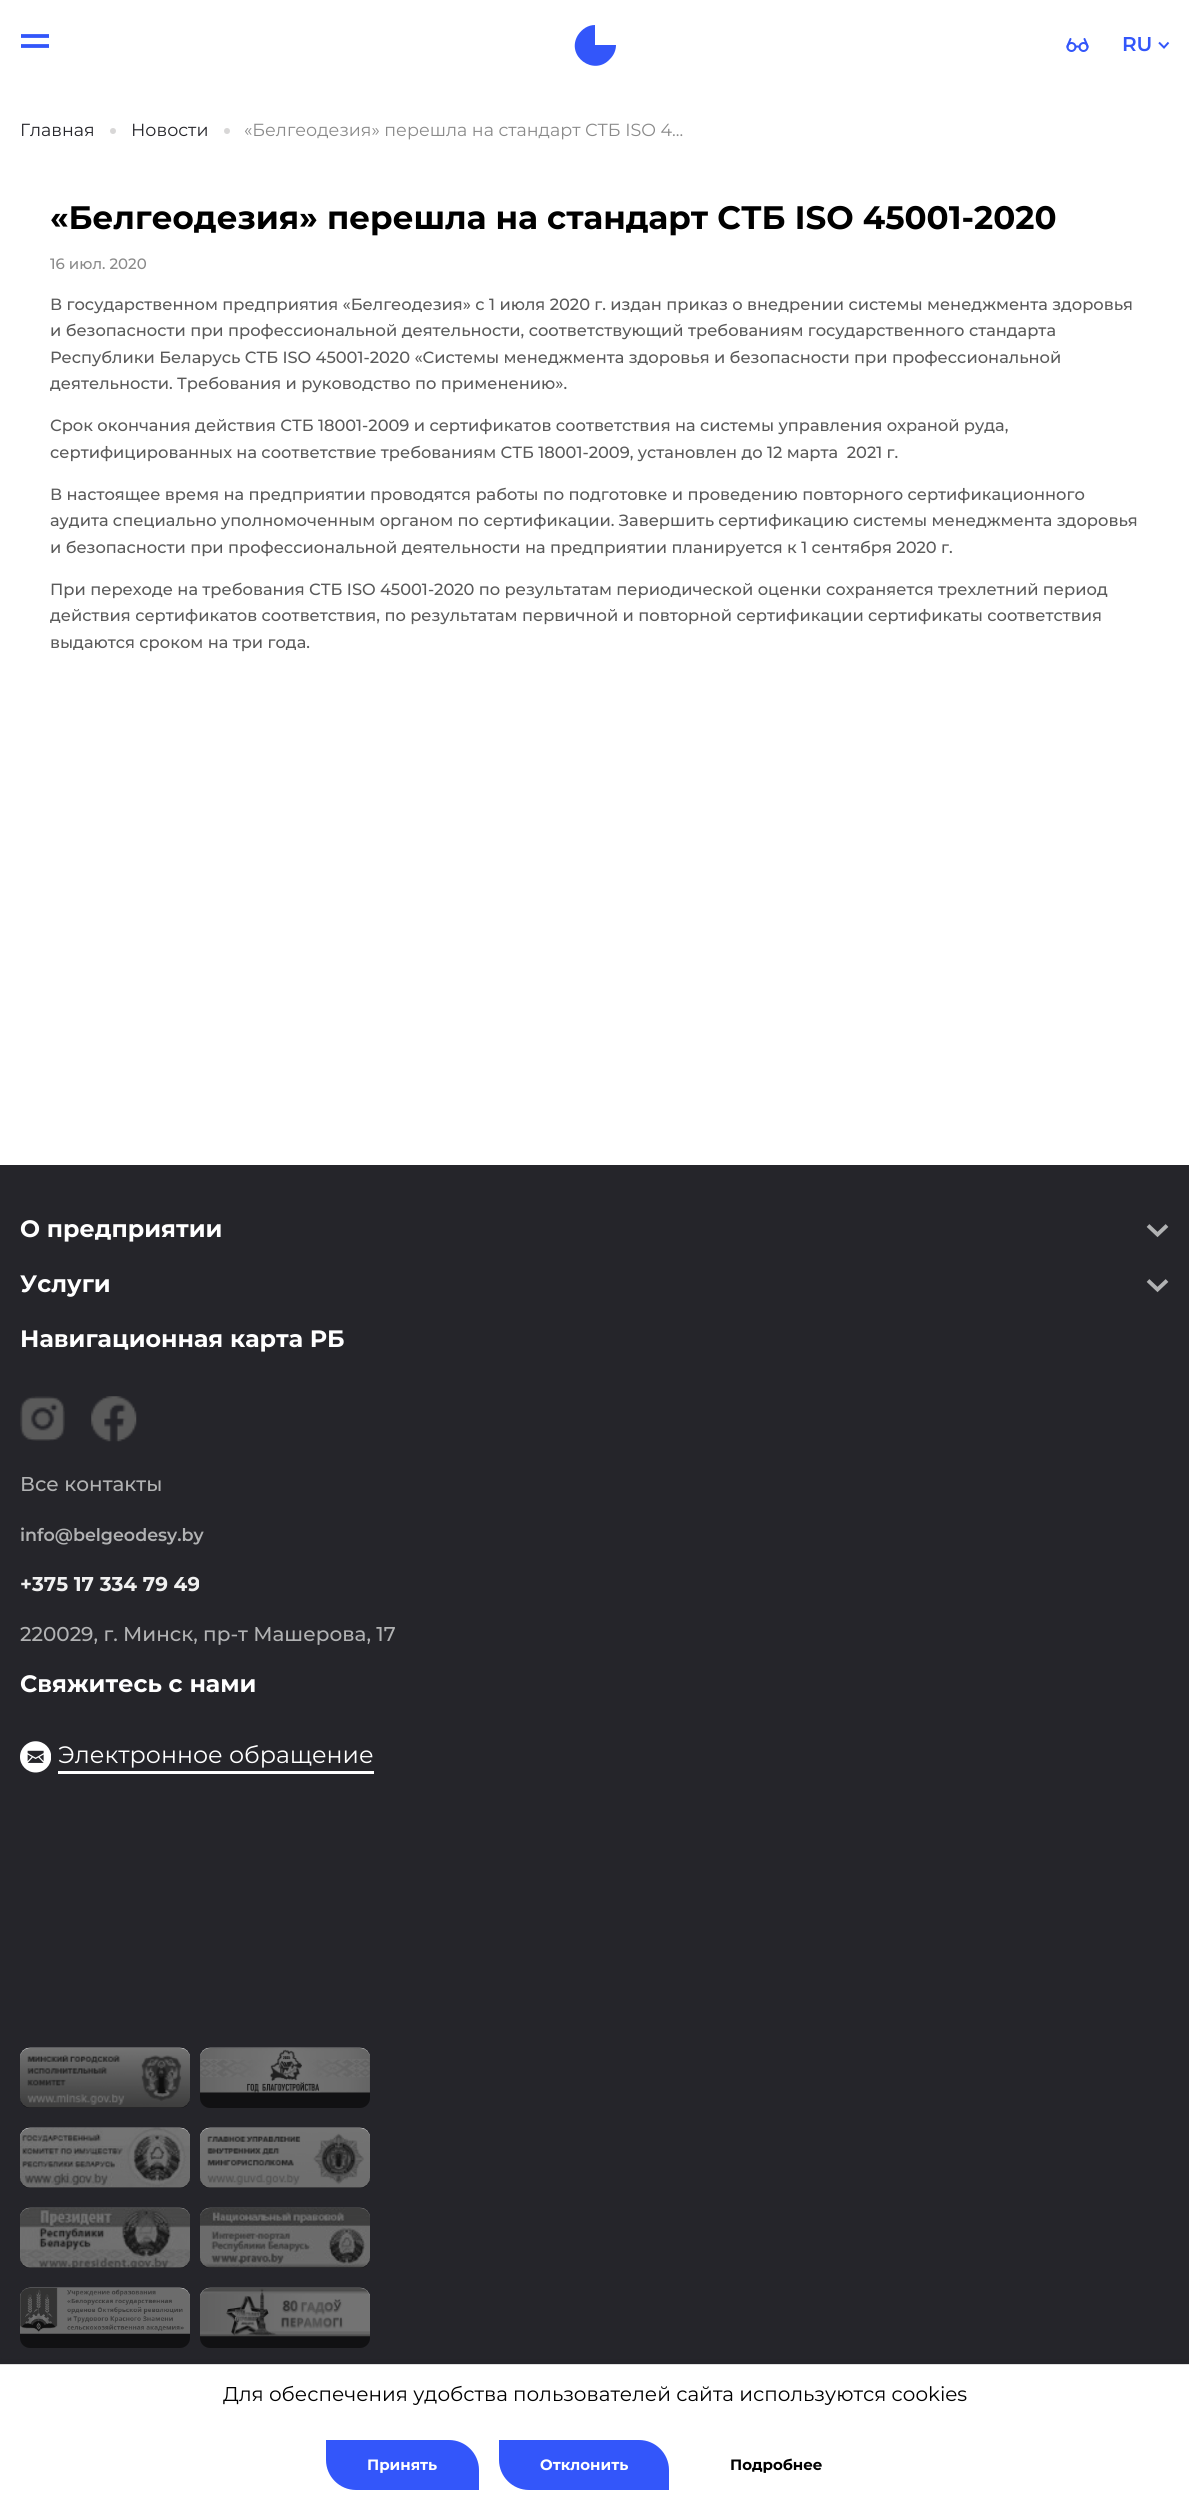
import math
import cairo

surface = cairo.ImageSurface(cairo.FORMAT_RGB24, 1189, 2504)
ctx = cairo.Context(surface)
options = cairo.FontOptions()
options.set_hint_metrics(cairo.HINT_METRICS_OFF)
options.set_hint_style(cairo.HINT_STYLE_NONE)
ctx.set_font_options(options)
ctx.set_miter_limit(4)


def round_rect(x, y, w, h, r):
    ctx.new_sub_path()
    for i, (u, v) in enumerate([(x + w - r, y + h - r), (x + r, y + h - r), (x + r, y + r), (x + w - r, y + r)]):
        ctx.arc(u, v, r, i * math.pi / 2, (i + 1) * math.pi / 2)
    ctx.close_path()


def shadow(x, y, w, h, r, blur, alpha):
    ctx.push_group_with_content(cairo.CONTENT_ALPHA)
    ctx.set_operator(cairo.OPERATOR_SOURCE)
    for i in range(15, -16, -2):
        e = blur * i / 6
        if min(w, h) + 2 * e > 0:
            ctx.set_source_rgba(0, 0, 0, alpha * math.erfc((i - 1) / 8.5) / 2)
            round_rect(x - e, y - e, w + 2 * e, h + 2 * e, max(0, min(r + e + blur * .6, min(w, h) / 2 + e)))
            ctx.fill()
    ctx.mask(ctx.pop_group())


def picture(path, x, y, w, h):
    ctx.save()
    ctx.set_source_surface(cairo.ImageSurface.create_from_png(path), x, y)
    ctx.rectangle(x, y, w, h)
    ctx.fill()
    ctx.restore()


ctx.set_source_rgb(1, 1, 1)
ctx.paint()
ctx.new_path()
ctx.move_to(21, 36)
ctx.line_to(49, 36)
ctx.move_to(21, 46)
ctx.line_to(49, 46)
ctx.set_source_rgb(0.2, 0.337, 0.98)
ctx.set_line_width(3.8)
ctx.stroke()
ctx.new_path()
ctx.move_to(595, 25)
ctx.curve_to(588, 25, 582, 29, 578, 35)
ctx.curve_to(565, 56, 594, 77, 610, 59)
ctx.curve_to(614, 55, 616, 50, 616, 45)
ctx.line_to(595, 45)
ctx.close_path()
ctx.fill()
picture("img1.png", 1066, 38, 23, 14)
ctx.select_font_face("Montserrat SemiBold")
ctx.set_font_size(20)
ctx.move_to(1122, 51)
ctx.show_text("RU")
ctx.new_path()
ctx.move_to(1159, 42.5)
ctx.line_to(1164, 47.5)
ctx.line_to(1168.5, 42.5)
ctx.set_line_width(2)
ctx.stroke()
ctx.select_font_face("Montserrat")
ctx.set_font_size(17.5)
ctx.set_source_rgb(0.145, 0.145, 0.165)
ctx.move_to(20, 136)
ctx.show_text("Главная")
ctx.set_source_rgb(0.847, 0.843, 0.843)
ctx.new_path()
ctx.arc(113, 131, 3, 0, 2 * math.pi)
ctx.fill()
ctx.set_source_rgb(0.145, 0.145, 0.165)
ctx.move_to(131, 136)
ctx.show_text("Новости")
ctx.set_source_rgb(0.847, 0.843, 0.843)
ctx.new_path()
ctx.arc(227, 131, 3, 0, 2 * math.pi)
ctx.fill()
ctx.set_source_rgb(0.541, 0.541, 0.541)
ctx.move_to(244, 136)
ctx.show_text("«Белгеодезия» перешла на стандарт СТБ ISO 4...")
ctx.select_font_face("Montserrat", cairo.FONT_SLANT_NORMAL, cairo.FONT_WEIGHT_BOLD)
ctx.set_font_size(32.5)
ctx.set_source_rgb(0, 0, 0)
ctx.move_to(50, 229)
ctx.show_text("«Белгеодезия» перешла на стандарт СТБ ISO 45001-2020")
ctx.select_font_face("Montserrat Medium")
ctx.set_font_size(15)
ctx.set_source_rgb(0.541, 0.541, 0.541)
ctx.move_to(50, 269)
ctx.show_text("16 июл. 2020")
ctx.set_font_size(16.25)
ctx.set_source_rgb(0.353, 0.353, 0.353)
ctx.move_to(50, 310)
ctx.show_text("В государственном предприятия «Белгеодезия» с 1 июля 2020 г. издан приказ о внедрении системы менеджмента здоровья")
ctx.move_to(50, 336)
ctx.show_text("и безопасности при профессиональной деятельности, соответствующий требованиям государственного стандарта")
ctx.move_to(50, 363)
ctx.show_text("Республики Беларусь СТБ ISO 45001-2020 «Системы менеджмента здоровья и безопасности при профессиональной")
ctx.move_to(50, 389)
ctx.show_text("деятельности. Требования и руководство по применению».")
ctx.move_to(50, 431)
ctx.show_text("Срок окончания действия СТБ 18001-2009 и сертификатов соответствия на системы управления охраной руда,")
ctx.move_to(50, 458)
ctx.show_text("сертифицированных на соответствие требованиям СТБ 18001-2009, установлен до 12 марта  2021 г.")
ctx.move_to(50, 500)
ctx.show_text("В настоящее время на предприятии проводятся работы по подготовке и проведению повторного сертификационного")
ctx.move_to(50, 526)
ctx.show_text("аудита специально уполномоченным органом по сертификации. Завершить сертификацию системы менеджмента здоровья")
ctx.move_to(50, 553)
ctx.show_text("и безопасности при профессиональной деятельности на предприятии планируется к 1 сентября 2020 г.")
ctx.move_to(50, 595)
ctx.show_text("При переходе на требования СТБ ISO 45001-2020 по результатам периодической оценки сохраняется трехлетний период")
ctx.move_to(50, 621)
ctx.show_text("действия сертификатов соответствия, по результатам первичной и повторной сертификации сертификаты соответствия")
ctx.move_to(50, 648)
ctx.show_text("выдаются сроком на три года.")
ctx.set_source_rgb(0.145, 0.145, 0.165)
ctx.rectangle(0, 1165, 1189, 1199)
ctx.fill()
ctx.select_font_face("Montserrat", cairo.FONT_SLANT_NORMAL, cairo.FONT_WEIGHT_BOLD)
ctx.set_font_size(23.75)
ctx.set_source_rgb(1, 1, 1)
ctx.move_to(20, 1237)
ctx.show_text("О предприятии")
ctx.new_path()
ctx.move_to(1148, 1225.5)
ctx.line_to(1157.5, 1234.5)
ctx.line_to(1167, 1225.5)
ctx.set_source_rgb(0.694, 0.698, 0.702)
ctx.set_line_width(3.9)
ctx.stroke()
ctx.set_source_rgb(1, 1, 1)
ctx.move_to(20, 1292)
ctx.show_text("Услуги")
ctx.new_path()
ctx.move_to(1148, 1280.5)
ctx.line_to(1157.5, 1289.5)
ctx.line_to(1167, 1280.5)
ctx.set_source_rgb(0.694, 0.698, 0.702)
ctx.stroke()
ctx.set_source_rgb(1, 1, 1)
ctx.move_to(20, 1347)
ctx.show_text("Навигационная карта РБ")
picture("img2.png", 20, 1396, 45, 45)
picture("img3.png", 91, 1396, 46, 46)
ctx.select_font_face("Montserrat Medium")
ctx.set_font_size(20)
ctx.set_source_rgb(0.694, 0.698, 0.702)
ctx.move_to(20, 1491)
ctx.show_text("Все контакты")
ctx.select_font_face("Montserrat SemiBold")
ctx.set_font_size(17.5)
ctx.move_to(20, 1541)
ctx.show_text("info@belgeodesy.by")
ctx.select_font_face("Montserrat", cairo.FONT_SLANT_NORMAL, cairo.FONT_WEIGHT_BOLD)
ctx.set_font_size(20)
ctx.set_source_rgb(0.941, 0.941, 0.941)
ctx.move_to(20, 1591)
ctx.show_text("+375 17 334 79 49")
ctx.select_font_face("Montserrat Medium")
ctx.set_source_rgb(0.694, 0.698, 0.702)
ctx.move_to(20, 1641)
ctx.show_text("220029, г. Минск, пр-т Машерова, 17")
ctx.select_font_face("Montserrat", cairo.FONT_SLANT_NORMAL, cairo.FONT_WEIGHT_BOLD)
ctx.set_font_size(23.75)
ctx.set_source_rgb(1, 1, 1)
ctx.move_to(20, 1692)
ctx.show_text("Свяжитесь с нами")
picture("img4.png", 20, 1741, 31, 32)
ctx.rectangle(58, 1771, 316, 3)
ctx.fill()
ctx.select_font_face("Montserrat")
ctx.move_to(58, 1763)
ctx.show_text("Электронное обращение")
picture("img5.png", 20, 2047, 170, 61)
ctx.set_source_rgba(0, 0, 0, 0.55)
round_rect(20, 2048, 170, 60, 10)
ctx.fill()
picture("img6.png", 200, 2047, 170, 46)
round_rect(200, 2048, 170, 60, 10)
ctx.fill()
picture("img7.png", 20, 2127, 170, 61)
round_rect(20, 2128, 170, 60, 10)
ctx.fill()
picture("img8.png", 200, 2127, 170, 61)
round_rect(200, 2128, 170, 60, 10)
ctx.fill()
picture("img9.png", 20, 2207, 170, 61)
round_rect(20, 2208, 170, 60, 10)
ctx.fill()
picture("img10.png", 200, 2207, 170, 61)
round_rect(200, 2208, 170, 60, 10)
ctx.fill()
picture("img11.png", 20, 2287, 170, 47)
round_rect(20, 2288, 170, 60, 10)
ctx.fill()
picture("img12.png", 200, 2287, 170, 50)
round_rect(200, 2288, 170, 60, 10)
ctx.fill()
ctx.set_source_rgb(0, 0, 0)
shadow(0, 2364, 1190, 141, 0, 5, 0.1)
ctx.set_source_rgb(1, 1, 1)
ctx.rectangle(0, 2365, 1189, 139)
ctx.fill()
ctx.set_source_rgb(0.867, 0.867, 0.867)
ctx.rectangle(0, 2364, 1189, 1)
ctx.fill()
ctx.set_font_size(20)
ctx.set_source_rgb(0, 0, 0)
ctx.move_to(223, 2401)
ctx.show_text("Для обеспечения удобства пользователей сайта используются cookies")
ctx.set_source_rgb(0.2, 0.337, 0.98)
ctx.new_path()
ctx.move_to(326, 2440)
ctx.line_to(449, 2440)
ctx.curve_to(465.5, 2440, 479, 2453.5, 479, 2470)
ctx.line_to(479, 2490)
ctx.line_to(356, 2490)
ctx.curve_to(339.5, 2490, 326, 2476.5, 326, 2460)
ctx.close_path()
ctx.fill()
ctx.select_font_face("Montserrat", cairo.FONT_SLANT_NORMAL, cairo.FONT_WEIGHT_BOLD)
ctx.set_font_size(15)
ctx.set_source_rgb(1, 1, 1)
ctx.move_to(367, 2470)
ctx.show_text("Принять")
ctx.set_source_rgb(0.2, 0.337, 0.98)
ctx.new_path()
ctx.move_to(499, 2440)
ctx.line_to(639, 2440)
ctx.curve_to(655.5, 2440, 669, 2453.5, 669, 2470)
ctx.line_to(669, 2490)
ctx.line_to(529, 2490)
ctx.curve_to(512.5, 2490, 499, 2476.5, 499, 2460)
ctx.close_path()
ctx.fill()
ctx.set_source_rgb(1, 1, 1)
ctx.move_to(540, 2470)
ctx.show_text("Отклонить")
ctx.set_source_rgb(0, 0, 0)
ctx.move_to(730, 2470)
ctx.show_text("Подробнее")
surface.write_to_png("page.png")
